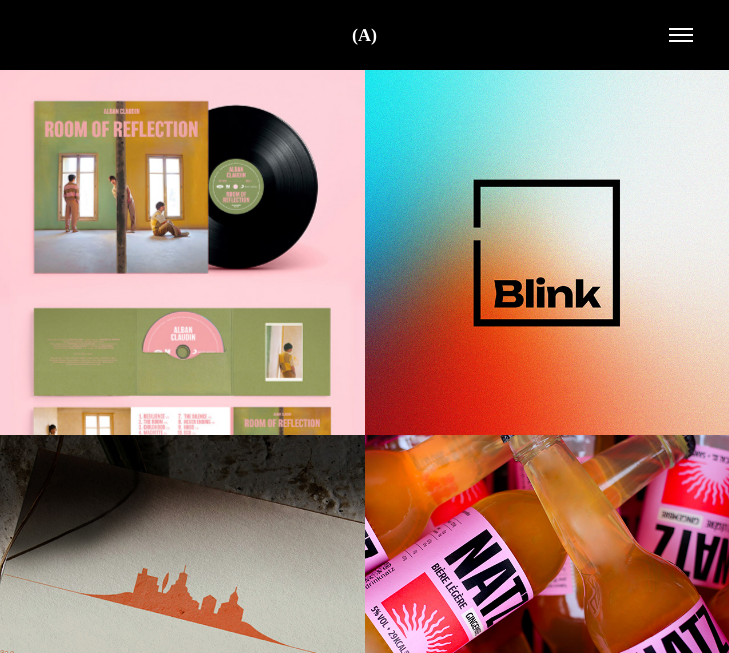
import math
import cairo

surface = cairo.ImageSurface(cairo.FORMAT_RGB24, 729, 653)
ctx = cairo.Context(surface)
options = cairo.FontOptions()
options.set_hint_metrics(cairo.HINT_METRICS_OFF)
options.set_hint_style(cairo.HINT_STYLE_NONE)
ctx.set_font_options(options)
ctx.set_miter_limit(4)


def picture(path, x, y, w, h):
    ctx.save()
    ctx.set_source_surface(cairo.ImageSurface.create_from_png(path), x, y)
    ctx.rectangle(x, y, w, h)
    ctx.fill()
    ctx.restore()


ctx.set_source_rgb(0, 0, 0)
ctx.paint()
ctx.select_font_face("Liberation Serif", cairo.FONT_SLANT_NORMAL, cairo.FONT_WEIGHT_BOLD)
ctx.set_font_size(18)
ctx.set_source_rgb(1, 1, 1)
ctx.move_to(352, 41)
ctx.show_text("(A)")
ctx.rectangle(669, 28, 24, 2)
ctx.fill()
ctx.rectangle(669, 34, 24, 2)
ctx.fill()
ctx.rectangle(669, 40, 24, 2)
ctx.fill()
picture("img1.png", 0, 70, 365, 365)
picture("img2.png", 365, 70, 364, 365)
picture("img3.png", 0, 435, 365, 218)
picture("img4.png", 365, 435, 364, 218)
surface.write_to_png("page.png")
